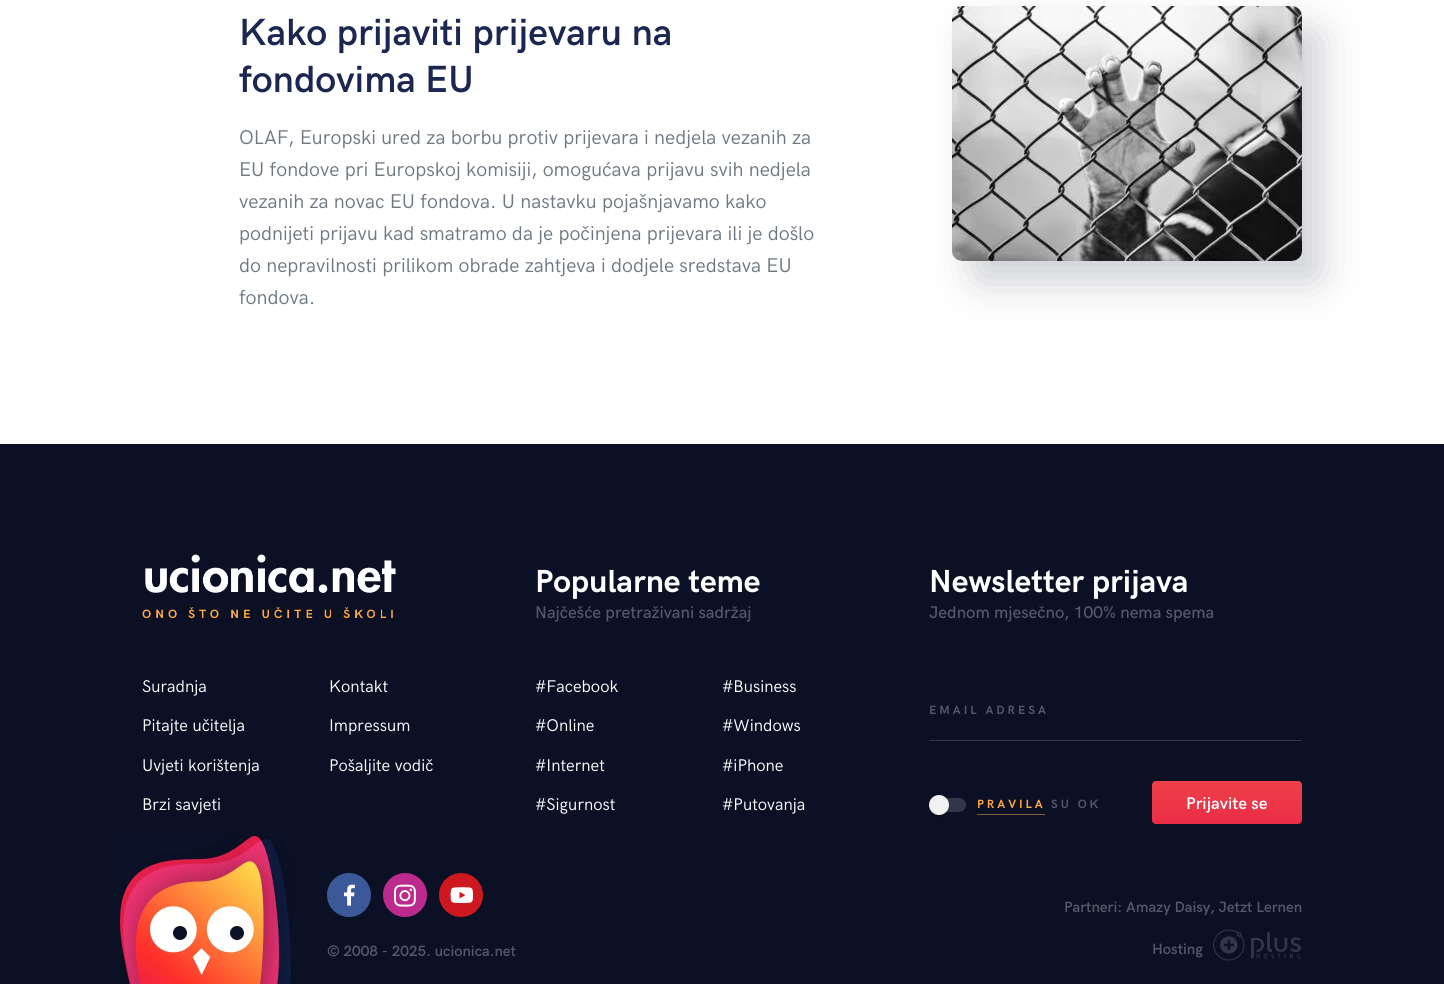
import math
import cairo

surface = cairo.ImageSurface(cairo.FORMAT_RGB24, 1444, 984)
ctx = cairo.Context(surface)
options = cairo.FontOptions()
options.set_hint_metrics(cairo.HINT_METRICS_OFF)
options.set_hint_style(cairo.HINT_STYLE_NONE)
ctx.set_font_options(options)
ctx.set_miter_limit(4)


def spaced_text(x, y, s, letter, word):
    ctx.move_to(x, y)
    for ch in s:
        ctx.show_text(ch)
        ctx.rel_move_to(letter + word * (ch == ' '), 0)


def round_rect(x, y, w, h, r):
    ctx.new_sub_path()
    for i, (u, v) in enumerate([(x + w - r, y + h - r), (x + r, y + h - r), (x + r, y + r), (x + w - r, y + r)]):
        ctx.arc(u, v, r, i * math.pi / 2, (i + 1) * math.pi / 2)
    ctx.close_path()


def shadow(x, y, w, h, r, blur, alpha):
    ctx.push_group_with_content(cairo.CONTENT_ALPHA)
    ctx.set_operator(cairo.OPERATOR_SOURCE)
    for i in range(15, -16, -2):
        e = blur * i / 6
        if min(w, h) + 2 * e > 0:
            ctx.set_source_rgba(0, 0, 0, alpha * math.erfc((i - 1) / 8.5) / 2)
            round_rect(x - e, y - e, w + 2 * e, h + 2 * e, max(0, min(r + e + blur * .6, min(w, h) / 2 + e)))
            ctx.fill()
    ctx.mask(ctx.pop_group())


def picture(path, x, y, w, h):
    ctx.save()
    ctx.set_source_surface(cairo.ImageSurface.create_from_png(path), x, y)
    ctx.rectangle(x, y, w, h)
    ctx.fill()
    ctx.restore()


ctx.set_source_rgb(1, 1, 1)
ctx.paint()
ctx.select_font_face("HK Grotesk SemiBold")
ctx.set_font_size(38)
ctx.set_source_rgb(0.11, 0.153, 0.318)
ctx.move_to(239, 45)
ctx.show_text("Kako prijaviti prijevaru na")
ctx.move_to(239, 92)
ctx.show_text("fondovima EU")
ctx.select_font_face("HK Grotesk")
ctx.set_font_size(20)
ctx.set_source_rgb(0.435, 0.471, 0.506)
ctx.move_to(239, 144)
ctx.show_text("OLAF, Europski ured za borbu protiv prijevara i nedjela vezanih za")
ctx.move_to(239, 176)
ctx.show_text("EU fondove pri Europskoj komisiji, omogućava prijavu svih nedjela")
ctx.move_to(239, 208)
ctx.show_text("vezanih za novac EU fondova. U nastavku pojašnjavamo kako")
ctx.move_to(239, 240)
ctx.show_text("podnijeti prijavu kad smatramo da je počinjena prijevara ili je došlo")
ctx.move_to(239, 272)
ctx.show_text("do nepravilnosti prilikom obrade zahtjeva i dodjele sredstava EU")
ctx.move_to(239, 304)
ctx.show_text("fondova.")
ctx.set_source_rgb(0.067, 0.094, 0.208)
shadow(972, 28, 350, 255, 10, 20, 0.2)
picture("img1.png", 952, 6, 350, 255)
ctx.set_source_rgb(0.043, 0.063, 0.145)
ctx.rectangle(0, 444, 1444, 540)
ctx.fill()
picture("img2.png", 142, 554, 254, 65)
ctx.set_font_size(17)
ctx.set_source_rgb(1, 1, 1)
ctx.move_to(142, 692)
ctx.show_text("Suradnja")
ctx.move_to(329, 692)
ctx.show_text("Kontakt")
ctx.move_to(142, 731)
ctx.show_text("Pitajte učitelja")
ctx.move_to(329, 731)
ctx.show_text("Impressum")
ctx.move_to(142, 771)
ctx.show_text("Uvjeti korištenja")
ctx.move_to(329, 771)
ctx.show_text("Pošaljite vodič")
ctx.move_to(142, 810)
ctx.show_text("Brzi savjeti")
ctx.select_font_face("HK Grotesk", cairo.FONT_SLANT_NORMAL, cairo.FONT_WEIGHT_BOLD)
ctx.set_font_size(32)
ctx.move_to(535, 592)
ctx.show_text("Popularne teme")
ctx.select_font_face("HK Grotesk Medium")
ctx.set_font_size(17)
ctx.set_source_rgb(0.329, 0.345, 0.4)
ctx.move_to(535, 618)
ctx.show_text("Najčešće pretraživani sadržaj")
ctx.select_font_face("HK Grotesk")
ctx.set_source_rgb(1, 1, 1)
ctx.move_to(535, 692)
ctx.show_text("#Facebook")
ctx.move_to(722, 692)
ctx.show_text("#Business")
ctx.move_to(535, 731)
ctx.show_text("#Online")
ctx.move_to(722, 731)
ctx.show_text("#Windows")
ctx.move_to(535, 771)
ctx.show_text("#Internet")
ctx.move_to(722, 771)
ctx.show_text("#iPhone")
ctx.move_to(535, 810)
ctx.show_text("#Sigurnost")
ctx.move_to(722, 810)
ctx.show_text("#Putovanja")
ctx.select_font_face("HK Grotesk", cairo.FONT_SLANT_NORMAL, cairo.FONT_WEIGHT_BOLD)
ctx.set_font_size(32)
ctx.move_to(929, 592)
ctx.show_text("Newsletter prijava")
ctx.select_font_face("HK Grotesk Medium")
ctx.set_font_size(17)
ctx.set_source_rgb(0.329, 0.345, 0.4)
ctx.move_to(929, 618)
ctx.show_text("Jednom mjesečno, 100% nema spema")
ctx.select_font_face("HK Grotesk", cairo.FONT_SLANT_NORMAL, cairo.FONT_WEIGHT_BOLD)
ctx.set_font_size(12)
spaced_text(929, 714, "EMAIL ADRESA", 3, 0)
ctx.set_source_rgb(0.2, 0.216, 0.282)
ctx.rectangle(929, 740, 373, 1)
ctx.fill()
ctx.set_source_rgb(0.196, 0.212, 0.282)
round_rect(932, 798, 34, 14, 7)
ctx.fill()
ctx.set_source_rgb(0, 0, 0)
shadow(929, 797, 20, 20, 10, 1, 0.24)
ctx.set_source_rgb(0.945, 0.945, 0.945)
ctx.arc(939, 805, 10, 0, 2 * math.pi)
ctx.fill()
ctx.set_source_rgb(1, 0.667, 0.255)
spaced_text(977, 808, "PRAVILA", 3, 0)
ctx.set_source_rgb(0.522, 0.365, 0.2)
ctx.rectangle(977, 814, 68, 1)
ctx.fill()
ctx.set_source_rgb(0.329, 0.345, 0.4)
spaced_text(1051, 808, "SU OK", 3, 0)
gradient = cairo.LinearGradient(1227, 781, 1227, 824)
gradient.add_color_stop_rgba(0, 0.933, 0.251, 0.286, 1)
gradient.add_color_stop_rgba(1, 0.922, 0.176, 0.275, 1)
ctx.set_source(gradient)
round_rect(1152, 781, 150, 43, 4)
ctx.fill()
ctx.select_font_face("HK Grotesk SemiBold")
ctx.set_font_size(17)
ctx.set_source_rgb(1, 1, 1)
ctx.move_to(1186, 809)
ctx.show_text("Prijavite se")
picture("img3.png", 118, 835, 174, 149)
ctx.set_source_rgb(0.231, 0.349, 0.596)
ctx.arc(349, 895, 22, 0, 2 * math.pi)
ctx.fill()
picture("img4.png", 344, 884, 11, 22)
ctx.set_source_rgb(0.737, 0.165, 0.553)
ctx.arc(405, 895, 22, 0, 2 * math.pi)
ctx.fill()
picture("img5.png", 394, 884, 22, 23)
ctx.set_source_rgb(0.8, 0.094, 0.118)
ctx.arc(461, 895, 22, 0, 2 * math.pi)
ctx.fill()
picture("img6.png", 450, 887, 23, 16)
ctx.set_font_size(15)
ctx.set_source_rgb(0.329, 0.345, 0.4)
ctx.move_to(327, 956)
ctx.show_text("© 2008 - 2025. ucionica.net")
ctx.move_to(1064, 912)
ctx.show_text("Partneri: Amazy Daisy, Jetzt Lernen")
ctx.move_to(1152, 954)
ctx.show_text("Hosting")
picture("img7.png", 1213, 929, 88, 32)
surface.write_to_png("page.png")
